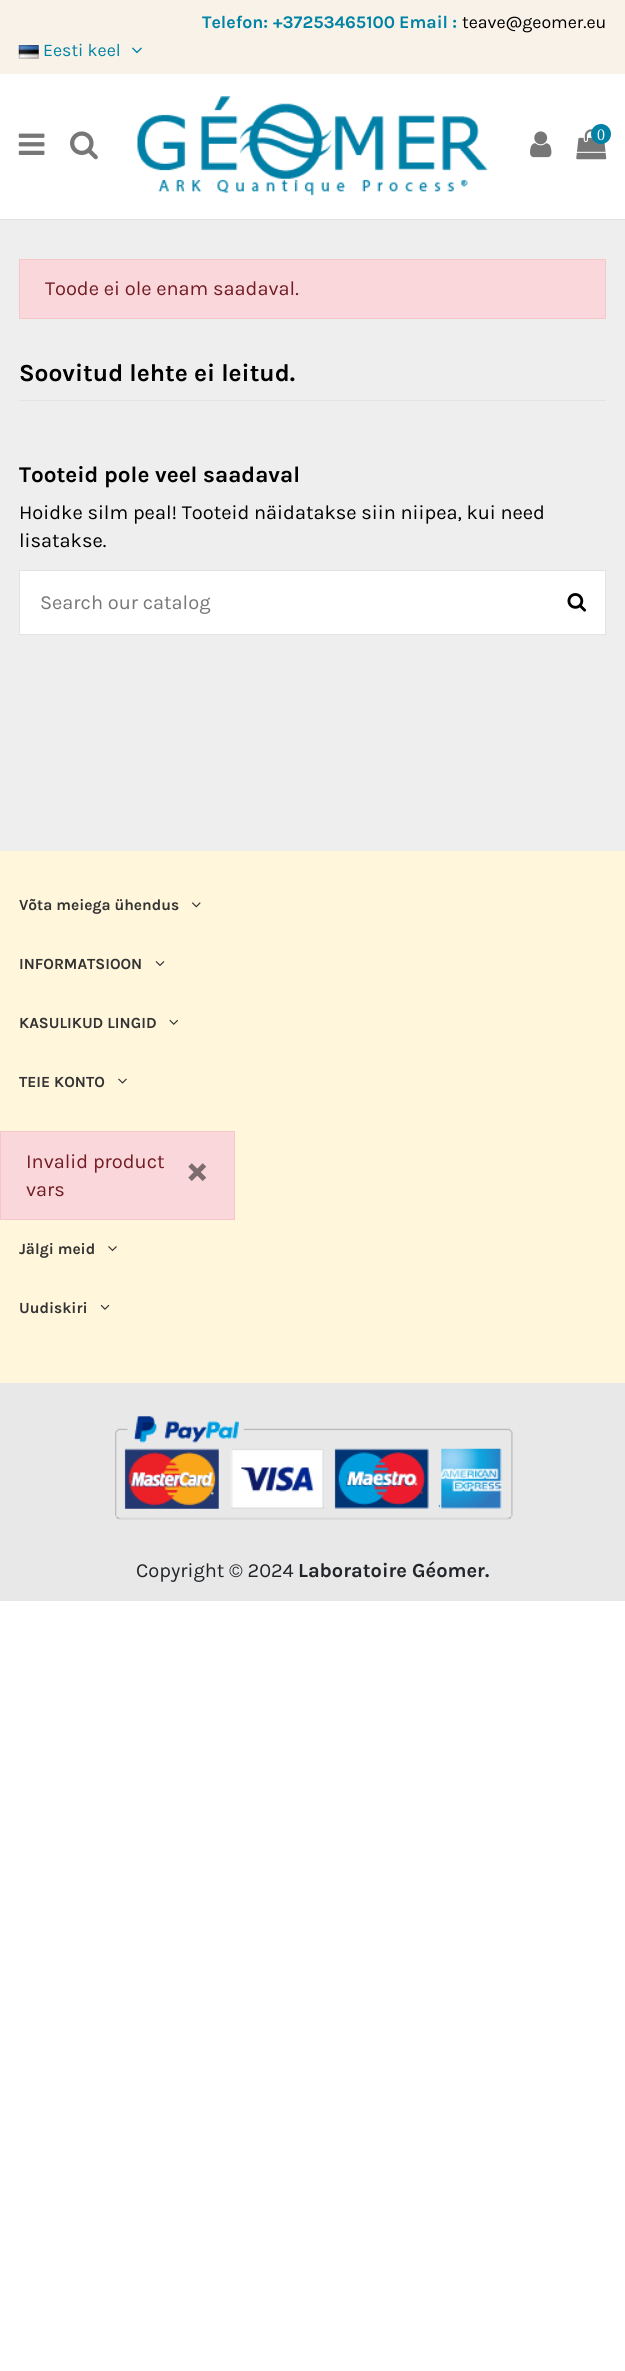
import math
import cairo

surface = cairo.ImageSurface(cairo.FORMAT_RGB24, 625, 2371)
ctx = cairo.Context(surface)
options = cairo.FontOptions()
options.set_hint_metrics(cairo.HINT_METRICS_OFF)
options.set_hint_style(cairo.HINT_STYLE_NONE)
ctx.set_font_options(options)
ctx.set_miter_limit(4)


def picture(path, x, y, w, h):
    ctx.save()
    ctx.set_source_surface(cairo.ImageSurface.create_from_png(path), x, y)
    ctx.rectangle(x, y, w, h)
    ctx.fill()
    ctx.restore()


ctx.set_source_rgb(1, 1, 1)
ctx.paint()
ctx.set_source_rgb(0.976, 0.949, 0.91)
ctx.rectangle(0, 0, 625, 74)
ctx.fill()
ctx.select_font_face("Karla", cairo.FONT_SLANT_NORMAL, cairo.FONT_WEIGHT_BOLD)
ctx.set_font_size(17.75)
ctx.set_source_rgb(0, 0.514, 0.643)
ctx.move_to(202, 28)
ctx.show_text("Telefon:")
ctx.move_to(273, 28)
ctx.show_text("+37253465100")
ctx.move_to(399, 28)
ctx.show_text("Email :")
ctx.select_font_face("Karla")
ctx.set_source_rgb(0, 0, 0)
ctx.move_to(462, 28)
ctx.show_text("teave@geomer.eu")
picture("img1.png", 18, 45, 21, 14)
ctx.set_source_rgb(0, 0.514, 0.643)
ctx.move_to(43, 56)
ctx.show_text("Eesti keel")
picture("img2.png", 132, 47, 10, 7)
ctx.set_source_rgb(0.89, 0.89, 0.89)
ctx.rectangle(0, 219, 625, 1)
ctx.fill()
picture("img3.png", 18, 133, 27, 22)
picture("img4.png", 70, 131, 28, 29)
picture("img5.png", 137, 96, 351, 100)
picture("img6.png", 530, 131, 22, 27)
picture("img7.png", 576, 129, 31, 31)
ctx.set_source_rgb(0, 0.506, 0.651)
ctx.arc(601, 134, 10, 0, 2 * math.pi)
ctx.fill()
ctx.select_font_face("Liberation Serif")
ctx.set_font_size(16)
ctx.set_source_rgb(1, 1, 1)
ctx.move_to(597, 140)
ctx.show_text("0")
ctx.set_source_rgb(0.933, 0.933, 0.933)
ctx.rectangle(0, 220, 625, 631)
ctx.fill()
ctx.set_source_rgb(0.973, 0.843, 0.855)
ctx.rectangle(19.5, 259.5, 586, 59)
ctx.fill_preserve()
ctx.set_source_rgb(0.961, 0.776, 0.796)
ctx.set_line_width(1)
ctx.stroke()
ctx.select_font_face("Karla")
ctx.set_font_size(20)
ctx.set_source_rgb(0.447, 0.11, 0.141)
ctx.move_to(45, 295)
ctx.show_text("Toode ei ole enam saadaval.")
ctx.set_source_rgb(0.89, 0.89, 0.89)
ctx.rectangle(19, 400, 587, 1)
ctx.fill()
ctx.select_font_face("Karla", cairo.FONT_SLANT_NORMAL, cairo.FONT_WEIGHT_BOLD)
ctx.set_font_size(24.5)
ctx.set_source_rgb(0, 0, 0)
ctx.move_to(19, 381)
ctx.show_text("Soovitud lehte ei leitud.")
ctx.set_font_size(22.5)
ctx.move_to(19, 482)
ctx.show_text("Tooteid pole veel saadaval")
ctx.select_font_face("Karla")
ctx.set_font_size(20)
ctx.move_to(19, 519)
ctx.show_text("Hoidke silm peal! Tooteid näidatakse siin niipea, kui need")
ctx.move_to(19, 547)
ctx.show_text("lisatakse.")
ctx.set_source_rgb(1, 1, 1)
ctx.rectangle(19.5, 570.5, 586, 64)
ctx.fill_preserve()
ctx.set_source_rgb(0.89, 0.89, 0.89)
ctx.stroke()
ctx.set_source_rgb(0.467, 0.467, 0.467)
ctx.move_to(40, 609)
ctx.show_text("Search our catalog")
picture("img8.png", 567, 593, 20, 19)
ctx.set_source_rgb(1, 0.961, 0.863)
ctx.rectangle(0, 851, 625, 532)
ctx.fill()
ctx.select_font_face("Karla", cairo.FONT_SLANT_NORMAL, cairo.FONT_WEIGHT_BOLD)
ctx.set_font_size(15.5)
ctx.set_source_rgb(0.2, 0.2, 0.2)
ctx.move_to(19, 910)
ctx.show_text("Võta meiega ühendus")
picture("img9.png", 192, 902, 9, 6)
ctx.move_to(19, 969)
ctx.show_text("INFORMATSIOON")
picture("img10.png", 155, 961, 10, 5)
ctx.move_to(19, 1028)
ctx.show_text("KASULIKUD LINGID")
picture("img11.png", 169, 1019, 9, 6)
ctx.move_to(19, 1087)
ctx.show_text("TEIE KONTO")
picture("img12.png", 118, 1078, 9, 6)
ctx.set_source_rgb(0.973, 0.843, 0.855)
ctx.rectangle(0.5, 1131.5, 234, 88)
ctx.fill_preserve()
ctx.set_source_rgb(0.961, 0.776, 0.796)
ctx.stroke()
ctx.select_font_face("Karla")
ctx.set_font_size(20)
ctx.set_source_rgb(0.447, 0.11, 0.141)
ctx.move_to(26, 1168)
ctx.show_text("Invalid product")
ctx.move_to(26, 1196)
ctx.show_text("vars")
ctx.select_font_face("Karla", cairo.FONT_SLANT_NORMAL, cairo.FONT_WEIGHT_BOLD)
ctx.set_font_size(42)
ctx.set_source_rgb(0.486, 0.424, 0.427)
ctx.move_to(186, 1183)
ctx.show_text("×")
ctx.set_font_size(15.5)
ctx.set_source_rgb(0.2, 0.2, 0.2)
ctx.move_to(19, 1254)
ctx.show_text("Jälgi meid")
picture("img13.png", 108, 1246, 9, 6)
ctx.move_to(19, 1313)
ctx.show_text("Uudiskiri")
picture("img14.png", 100, 1304, 10, 6)
ctx.set_source_rgb(0.91, 0.91, 0.91)
ctx.rectangle(0, 1383, 625, 218)
ctx.fill()
picture("img15.png", 115, 1416, 398, 104)
ctx.select_font_face("Karla")
ctx.set_font_size(20)
ctx.set_source_rgb(0.129, 0.145, 0.161)
ctx.move_to(136, 1577)
ctx.show_text("Copyright © 2024")
ctx.select_font_face("Karla", cairo.FONT_SLANT_NORMAL, cairo.FONT_WEIGHT_BOLD)
ctx.move_to(298, 1577)
ctx.show_text("Laboratoire Géomer.")
surface.write_to_png("page.png")
